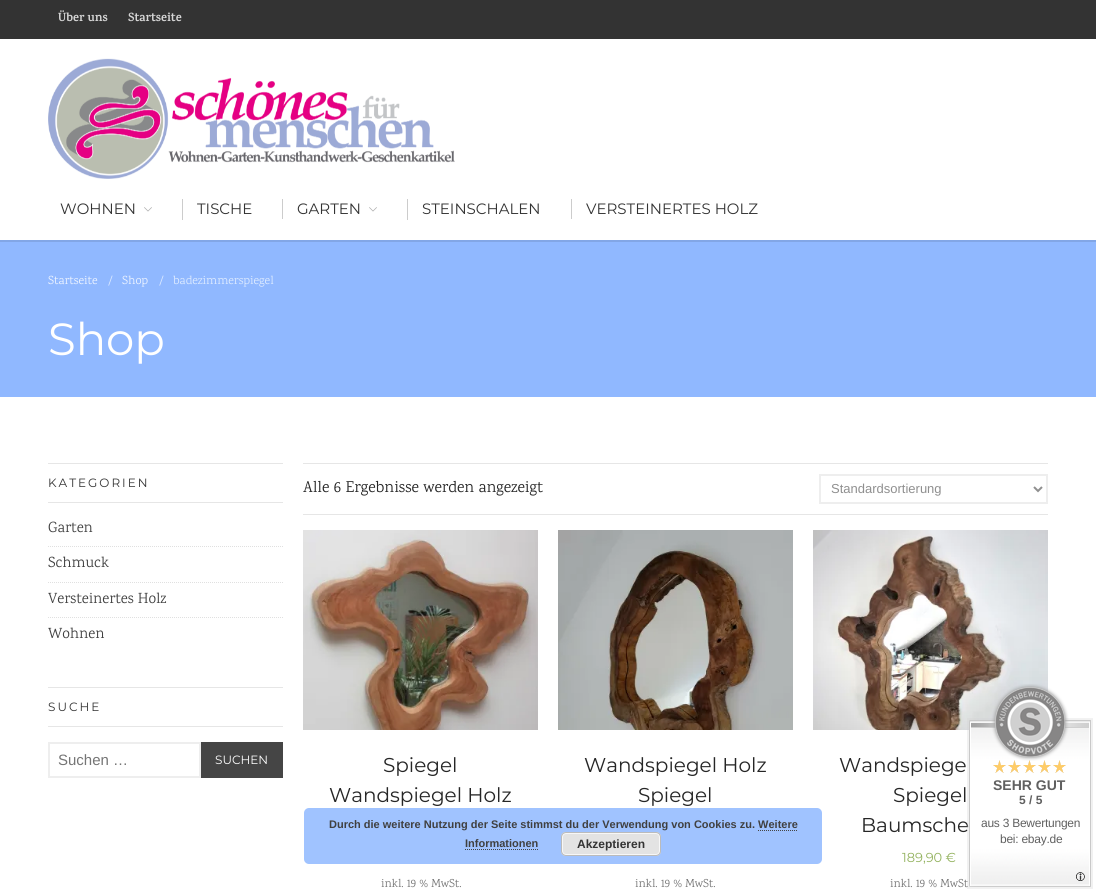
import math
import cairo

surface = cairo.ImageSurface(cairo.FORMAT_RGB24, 1096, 894)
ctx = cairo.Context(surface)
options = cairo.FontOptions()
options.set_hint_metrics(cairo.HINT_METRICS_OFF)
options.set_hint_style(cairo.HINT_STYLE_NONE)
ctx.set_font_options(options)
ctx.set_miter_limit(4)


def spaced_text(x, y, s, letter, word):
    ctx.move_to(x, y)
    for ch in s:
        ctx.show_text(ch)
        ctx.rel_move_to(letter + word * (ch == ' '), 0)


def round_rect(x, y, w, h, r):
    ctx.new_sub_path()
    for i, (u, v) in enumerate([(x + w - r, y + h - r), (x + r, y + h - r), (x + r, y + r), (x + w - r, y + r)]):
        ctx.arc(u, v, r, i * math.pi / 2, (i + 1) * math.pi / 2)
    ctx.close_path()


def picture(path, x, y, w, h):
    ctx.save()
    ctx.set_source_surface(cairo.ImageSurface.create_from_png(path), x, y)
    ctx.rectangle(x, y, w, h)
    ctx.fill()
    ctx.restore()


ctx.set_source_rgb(1, 1, 1)
ctx.paint()
ctx.set_source_rgb(0.2, 0.2, 0.2)
ctx.rectangle(0, 0, 1096, 39)
ctx.fill()
ctx.select_font_face("Karma", cairo.FONT_SLANT_NORMAL, cairo.FONT_WEIGHT_BOLD)
ctx.set_font_size(12)
ctx.set_source_rgb(0.839, 0.839, 0.839)
ctx.move_to(58, 21)
ctx.show_text("Über uns")
ctx.move_to(128, 21)
ctx.show_text("Startseite")
ctx.set_source_rgb(0.51, 0.651, 0.902)
ctx.rectangle(0, 240, 1096, 2)
ctx.fill()
picture("img1.png", 48, 58, 407, 121)
ctx.set_source_rgb(0.8, 0.8, 0.8)
ctx.rectangle(182, 199, 1, 21)
ctx.fill()
ctx.select_font_face("Montserrat")
ctx.set_font_size(15)
ctx.set_source_rgb(0.2, 0.2, 0.2)
ctx.move_to(60, 214)
ctx.show_text("WOHNEN")
picture("img2.png", 144, 207, 8, 5)
ctx.set_source_rgb(0.8, 0.8, 0.8)
ctx.rectangle(282, 199, 1, 20)
ctx.fill()
ctx.set_source_rgb(0.2, 0.2, 0.2)
ctx.move_to(197, 214)
ctx.show_text("TISCHE")
ctx.set_source_rgb(0.8, 0.8, 0.8)
ctx.rectangle(407, 199, 1, 21)
ctx.fill()
ctx.set_source_rgb(0.2, 0.2, 0.2)
ctx.move_to(297, 214)
ctx.show_text("GARTEN")
picture("img2.png", 369, 207, 8, 5)
ctx.set_source_rgb(0.8, 0.8, 0.8)
ctx.rectangle(571, 199, 1, 20)
ctx.fill()
ctx.set_source_rgb(0.2, 0.2, 0.2)
ctx.move_to(422, 214)
ctx.show_text("STEINSCHALEN")
ctx.move_to(586, 214)
ctx.show_text("VERSTEINERTES HOLZ")
ctx.set_source_rgb(0.565, 0.722, 1)
ctx.rectangle(0, 242, 1096, 155)
ctx.fill()
ctx.select_font_face("Karma")
ctx.set_font_size(12)
ctx.set_source_rgb(0.933, 0.957, 1)
ctx.move_to(48, 284)
ctx.show_text("Startseite")
ctx.set_source_rgb(0.871, 0.918, 1)
ctx.move_to(108, 284)
ctx.show_text("/")
ctx.set_source_rgb(0.933, 0.957, 1)
ctx.move_to(122, 284)
ctx.show_text("Shop")
ctx.set_source_rgb(0.871, 0.918, 1)
ctx.move_to(159, 284)
ctx.show_text("/")
ctx.move_to(173, 284)
ctx.show_text("badezimmerspiegel")
ctx.select_font_face("Montserrat")
ctx.set_font_size(45)
ctx.set_source_rgb(1, 1, 1)
ctx.move_to(48, 355)
ctx.show_text("Shop")
ctx.set_source_rgb(0.902, 0.902, 0.902)
ctx.rectangle(48, 463, 235, 1)
ctx.fill()
ctx.rectangle(48, 502, 235, 1)
ctx.fill()
ctx.set_font_size(12)
ctx.set_source_rgb(0.2, 0.2, 0.2)
spaced_text(48, 487, "KATEGORIEN", 2, 0)
ctx.new_path()
ctx.move_to(48, 546.5)
ctx.line_to(283, 546.5)
ctx.set_source_rgb(0.878, 0.878, 0.878)
ctx.set_line_width(1)
ctx.set_dash([1, 1])
ctx.stroke()
ctx.select_font_face("Karma")
ctx.set_font_size(15)
ctx.set_source_rgb(0.251, 0.251, 0.251)
ctx.move_to(48, 532)
ctx.show_text("Garten")
ctx.new_path()
ctx.move_to(48, 582.5)
ctx.line_to(283, 582.5)
ctx.set_source_rgb(0.878, 0.878, 0.878)
ctx.stroke()
ctx.set_source_rgb(0.251, 0.251, 0.251)
ctx.move_to(48, 567)
ctx.show_text("Schmuck")
ctx.new_path()
ctx.move_to(48, 617.5)
ctx.line_to(283, 617.5)
ctx.set_source_rgb(0.878, 0.878, 0.878)
ctx.stroke()
ctx.set_source_rgb(0.251, 0.251, 0.251)
ctx.move_to(48, 603)
ctx.show_text("Versteinertes Holz")
ctx.move_to(48, 638)
ctx.show_text("Wohnen")
ctx.set_source_rgb(0.902, 0.902, 0.902)
ctx.rectangle(48, 687, 235, 1)
ctx.fill()
ctx.rectangle(48, 726, 235, 1)
ctx.fill()
ctx.select_font_face("Montserrat")
ctx.set_font_size(12)
ctx.set_source_rgb(0.2, 0.2, 0.2)
spaced_text(48, 711, "SUCHE", 2, 0)
ctx.rectangle(49, 743, 151, 34)
ctx.set_source_rgb(0.933, 0.933, 0.933)
ctx.set_line_width(2)
ctx.set_dash([])
ctx.stroke()
ctx.select_font_face("Liberation Sans")
ctx.set_font_size(15)
ctx.set_source_rgb(0.459, 0.459, 0.459)
ctx.move_to(58, 765)
ctx.show_text("Suchen …")
ctx.set_source_rgb(0.271, 0.271, 0.271)
ctx.rectangle(201, 742, 82, 36)
ctx.fill()
ctx.select_font_face("Montserrat")
ctx.set_font_size(12)
ctx.set_source_rgb(1, 1, 1)
ctx.move_to(215, 764)
ctx.show_text("SUCHEN")
ctx.set_source_rgb(0.902, 0.902, 0.902)
ctx.rectangle(303, 463, 745, 1)
ctx.fill()
ctx.rectangle(303, 514, 745, 1)
ctx.fill()
ctx.select_font_face("Karma")
ctx.set_font_size(16)
ctx.set_source_rgb(0.149, 0.149, 0.149)
ctx.move_to(303, 492)
ctx.show_text("Alle 6 Ergebnisse werden angezeigt")
ctx.rectangle(820, 475, 227, 28)
ctx.set_source_rgb(0.933, 0.933, 0.933)
ctx.stroke()
ctx.new_path()
ctx.move_to(1034, 487)
ctx.line_to(1038, 491)
ctx.line_to(1042, 487)
ctx.set_source_rgb(0.561, 0.561, 0.561)
ctx.stroke()
ctx.select_font_face("Liberation Sans")
ctx.set_font_size(13)
ctx.move_to(831, 493)
ctx.show_text("Standardsortierung")
picture("img3.png", 303, 530, 235, 200)
ctx.select_font_face("Montserrat")
ctx.set_font_size(20)
ctx.set_source_rgb(0.149, 0.149, 0.149)
ctx.move_to(383, 772)
ctx.show_text("Spiegel")
ctx.move_to(329, 802)
ctx.show_text("Wandspiegel Holz")
ctx.select_font_face("Karma")
ctx.set_font_size(11.75)
ctx.set_source_rgb(0.459, 0.459, 0.459)
ctx.move_to(381, 887)
ctx.show_text("inkl. 19 % MwSt.")
picture("img4.png", 558, 530, 235, 200)
ctx.select_font_face("Montserrat")
ctx.set_font_size(20)
ctx.set_source_rgb(0.149, 0.149, 0.149)
ctx.move_to(584, 772)
ctx.show_text("Wandspiegel Holz")
ctx.move_to(638, 802)
ctx.show_text("Spiegel")
ctx.select_font_face("Karma")
ctx.set_font_size(11.75)
ctx.set_source_rgb(0.459, 0.459, 0.459)
ctx.move_to(635, 887)
ctx.show_text("inkl. 19 % MwSt.")
picture("img5.png", 813, 530, 235, 200)
ctx.select_font_face("Montserrat")
ctx.set_font_size(20)
ctx.set_source_rgb(0.149, 0.149, 0.149)
ctx.move_to(839, 772)
ctx.show_text("Wandspiege")
ctx.move_to(893, 802)
ctx.show_text("Spiegel")
ctx.move_to(861, 832)
ctx.show_text("Baumsche")
ctx.set_font_size(13)
ctx.set_source_rgb(0.576, 0.698, 0.369)
ctx.move_to(902, 862)
ctx.show_text("189,90 €")
ctx.select_font_face("Karma")
ctx.set_font_size(11.75)
ctx.set_source_rgb(0.459, 0.459, 0.459)
ctx.move_to(890, 887)
ctx.show_text("inkl. 19 % MwSt")
picture("img6.png", 967, 684, 126, 205)
picture("img7.png", 993, 760, 73, 13)
ctx.select_font_face("Liberation Sans", cairo.FONT_SLANT_NORMAL, cairo.FONT_WEIGHT_BOLD)
ctx.set_font_size(14)
ctx.set_source_rgb(0.376, 0.376, 0.376)
ctx.move_to(993, 790)
ctx.show_text("SEHR GUT")
ctx.set_font_size(12)
ctx.move_to(1019, 804)
ctx.show_text("5 / 5")
ctx.select_font_face("Liberation Sans")
spaced_text(981, 827, "aus 3 Bewertungen", -0.25, 0)
spaced_text(1000, 843, "bei: ebay.de", -0.25, 0)
ctx.set_source_rgba(0.565, 0.725, 1, 0.85)
round_rect(304, 808, 518, 56, 5)
ctx.fill()
ctx.select_font_face("Liberation Sans", cairo.FONT_SLANT_NORMAL, cairo.FONT_WEIGHT_BOLD)
ctx.set_font_size(11)
ctx.set_source_rgb(0.251, 0.251, 0.251)
ctx.move_to(329, 828)
ctx.show_text("Durch die weitere Nutzung der Seite stimmst du der Verwendung von Cookies zu. Weitere")
ctx.move_to(465, 847)
ctx.show_text("Informationen")
ctx.new_path()
ctx.move_to(758, 830.5)
ctx.line_to(797, 830.5)
ctx.set_source_rgb(0.267, 0.267, 0.267)
ctx.set_line_width(1)
ctx.set_dash([1, 1])
ctx.stroke()
ctx.new_path()
ctx.move_to(465, 849.5)
ctx.line_to(538, 849.5)
ctx.stroke()
ctx.set_source_rgb(0.89, 0.89, 0.89)
round_rect(561, 832, 100, 24, 5)
ctx.fill()
round_rect(562.5, 833.5, 97, 21, 3.5)
ctx.set_source_rgb(0.965, 0.965, 0.965)
ctx.set_dash([])
ctx.stroke()
round_rect(561.5, 832.5, 99, 23, 4.5)
ctx.set_source_rgb(0.733, 0.733, 0.733)
ctx.stroke()
ctx.set_font_size(12)
ctx.set_source_rgb(0.2, 0.2, 0.2)
ctx.move_to(577, 848)
ctx.show_text("Akzeptieren")
surface.write_to_png("page.png")
